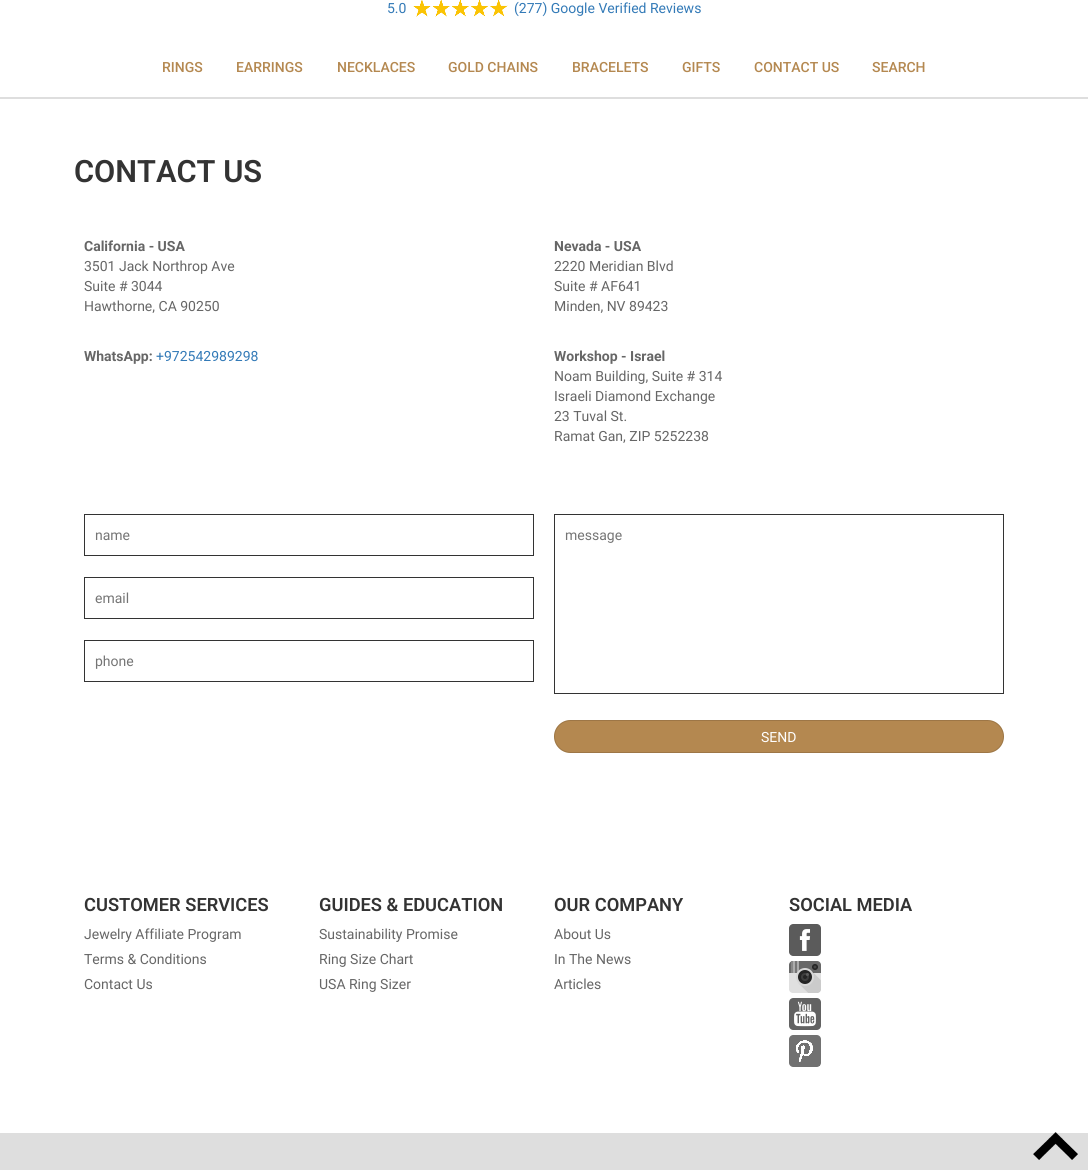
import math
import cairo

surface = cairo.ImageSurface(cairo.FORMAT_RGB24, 1088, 1170)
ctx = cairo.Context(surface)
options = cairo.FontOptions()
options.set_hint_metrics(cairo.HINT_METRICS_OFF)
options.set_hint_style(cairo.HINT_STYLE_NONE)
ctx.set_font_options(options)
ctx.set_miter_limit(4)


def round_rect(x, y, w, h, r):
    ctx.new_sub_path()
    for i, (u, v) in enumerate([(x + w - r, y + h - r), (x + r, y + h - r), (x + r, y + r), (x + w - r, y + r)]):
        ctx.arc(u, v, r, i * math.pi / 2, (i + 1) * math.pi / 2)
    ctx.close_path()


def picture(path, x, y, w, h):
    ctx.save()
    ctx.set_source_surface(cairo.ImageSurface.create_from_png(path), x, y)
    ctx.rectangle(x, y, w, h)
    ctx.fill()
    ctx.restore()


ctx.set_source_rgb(1, 1, 1)
ctx.paint()
ctx.select_font_face("Roboto")
ctx.set_font_size(14)
ctx.set_source_rgb(0.2, 0.478, 0.718)
ctx.move_to(387, 13)
ctx.show_text("5.0")
picture("img1.png", 413, 0, 95, 17)
ctx.move_to(514, 13)
ctx.show_text("(277) Google Verified Reviews")
ctx.select_font_face("Roboto Medium")
ctx.set_source_rgb(0.706, 0.533, 0.314)
ctx.move_to(162, 72)
ctx.show_text("RINGS")
ctx.move_to(236, 72)
ctx.show_text("EARRINGS")
ctx.move_to(337, 72)
ctx.show_text("NECKLACES")
ctx.move_to(448, 72)
ctx.show_text("GOLD CHAINS")
ctx.move_to(572, 72)
ctx.show_text("BRACELETS")
ctx.move_to(682, 72)
ctx.show_text("GIFTS")
ctx.move_to(754, 72)
ctx.show_text("CONTACT US")
ctx.move_to(872, 72)
ctx.show_text("SEARCH")
ctx.set_source_rgb(0.871, 0.871, 0.871)
ctx.rectangle(0, 97, 1088, 2)
ctx.fill()
ctx.select_font_face("Roboto SemiBold")
ctx.set_font_size(30.75)
ctx.set_source_rgb(0.2, 0.2, 0.2)
ctx.move_to(74, 182)
ctx.show_text("CONTACT US")
ctx.select_font_face("Roboto", cairo.FONT_SLANT_NORMAL, cairo.FONT_WEIGHT_BOLD)
ctx.set_font_size(14)
ctx.set_source_rgb(0.4, 0.4, 0.4)
ctx.move_to(84, 251)
ctx.show_text("California - USA")
ctx.select_font_face("Roboto")
ctx.move_to(84, 271)
ctx.show_text("3501 Jack Northrop Ave")
ctx.move_to(84, 291)
ctx.show_text("Suite # 3044")
ctx.move_to(84, 311)
ctx.show_text("Hawthorne, CA 90250")
ctx.select_font_face("Roboto", cairo.FONT_SLANT_NORMAL, cairo.FONT_WEIGHT_BOLD)
ctx.move_to(554, 251)
ctx.show_text("Nevada - USA")
ctx.select_font_face("Roboto")
ctx.move_to(554, 271)
ctx.show_text("2220 Meridian Blvd")
ctx.move_to(554, 291)
ctx.show_text("Suite # AF641")
ctx.move_to(554, 311)
ctx.show_text("Minden, NV 89423")
ctx.select_font_face("Roboto", cairo.FONT_SLANT_NORMAL, cairo.FONT_WEIGHT_BOLD)
ctx.move_to(84, 361)
ctx.show_text("WhatsApp:")
ctx.select_font_face("Roboto")
ctx.set_source_rgb(0.2, 0.478, 0.718)
ctx.move_to(156, 361)
ctx.show_text("+972542989298")
ctx.select_font_face("Roboto", cairo.FONT_SLANT_NORMAL, cairo.FONT_WEIGHT_BOLD)
ctx.set_source_rgb(0.4, 0.4, 0.4)
ctx.move_to(554, 361)
ctx.show_text("Workshop - Israel")
ctx.select_font_face("Roboto")
ctx.move_to(554, 381)
ctx.show_text("Noam Building, Suite # 314")
ctx.move_to(554, 401)
ctx.show_text("Israeli Diamond Exchange")
ctx.move_to(554, 421)
ctx.show_text("23 Tuval St.")
ctx.move_to(554, 441)
ctx.show_text("Ramat Gan, ZIP 5252238")
ctx.rectangle(84.5, 514.5, 449, 41)
ctx.set_source_rgb(0.2, 0.2, 0.2)
ctx.set_line_width(1)
ctx.stroke()
ctx.set_source_rgb(0.459, 0.459, 0.459)
ctx.move_to(95, 540)
ctx.show_text("name")
ctx.rectangle(84.5, 577.5, 449, 41)
ctx.set_source_rgb(0.2, 0.2, 0.2)
ctx.stroke()
ctx.set_source_rgb(0.459, 0.459, 0.459)
ctx.move_to(95, 603)
ctx.show_text("email")
ctx.rectangle(84.5, 640.5, 449, 41)
ctx.set_source_rgb(0.2, 0.2, 0.2)
ctx.stroke()
ctx.set_source_rgb(0.459, 0.459, 0.459)
ctx.move_to(95, 666)
ctx.show_text("phone")
ctx.rectangle(554.5, 514.5, 449, 179)
ctx.set_source_rgb(0.2, 0.2, 0.2)
ctx.stroke()
ctx.set_source_rgb(0.459, 0.459, 0.459)
ctx.move_to(565, 540)
ctx.show_text("message")
ctx.set_source_rgb(0.706, 0.533, 0.314)
round_rect(554, 720, 450, 33, 16.5)
ctx.fill()
round_rect(554.5, 720.5, 449, 32, 16)
ctx.set_source_rgba(0, 0, 0, 0.13)
ctx.stroke()
ctx.set_source_rgb(1, 1, 1)
ctx.move_to(761, 742)
ctx.show_text("SEND")
ctx.select_font_face("Roboto SemiBold")
ctx.set_font_size(18.25)
ctx.set_source_rgb(0.2, 0.2, 0.2)
ctx.move_to(84, 911)
ctx.show_text("CUSTOMER SERVICES")
ctx.select_font_face("Roboto")
ctx.set_font_size(14)
ctx.set_source_rgb(0.4, 0.4, 0.4)
ctx.move_to(84, 939)
ctx.show_text("Jewelry Affiliate Program")
ctx.move_to(84, 964)
ctx.show_text("Terms & Conditions")
ctx.move_to(84, 989)
ctx.show_text("Contact Us")
ctx.select_font_face("Roboto SemiBold")
ctx.set_font_size(18.25)
ctx.set_source_rgb(0.2, 0.2, 0.2)
ctx.move_to(319, 911)
ctx.show_text("GUIDES & EDUCATION")
ctx.select_font_face("Roboto")
ctx.set_font_size(14)
ctx.set_source_rgb(0.4, 0.4, 0.4)
ctx.move_to(319, 939)
ctx.show_text("Sustainability Promise")
ctx.move_to(319, 964)
ctx.show_text("Ring Size Chart")
ctx.move_to(319, 989)
ctx.show_text("USA Ring Sizer")
ctx.select_font_face("Roboto SemiBold")
ctx.set_font_size(18.25)
ctx.set_source_rgb(0.2, 0.2, 0.2)
ctx.move_to(554, 911)
ctx.show_text("OUR COMPANY")
ctx.select_font_face("Roboto")
ctx.set_font_size(14)
ctx.set_source_rgb(0.4, 0.4, 0.4)
ctx.move_to(554, 939)
ctx.show_text("About Us")
ctx.move_to(554, 964)
ctx.show_text("In The News")
ctx.move_to(554, 989)
ctx.show_text("Articles")
ctx.select_font_face("Roboto SemiBold")
ctx.set_font_size(18.25)
ctx.set_source_rgb(0.2, 0.2, 0.2)
ctx.move_to(789, 911)
ctx.show_text("SOCIAL MEDIA")
picture("img2.png", 789, 924, 32, 32)
picture("img3.png", 789, 961, 32, 32)
picture("img4.png", 789, 998, 32, 32)
picture("img5.png", 789, 1035, 32, 32)
ctx.set_source_rgb(0.871, 0.871, 0.871)
ctx.rectangle(0, 1133, 1088, 37)
ctx.fill()
picture("img6.png", 1033, 1132, 45, 28)
surface.write_to_png("page.png")
